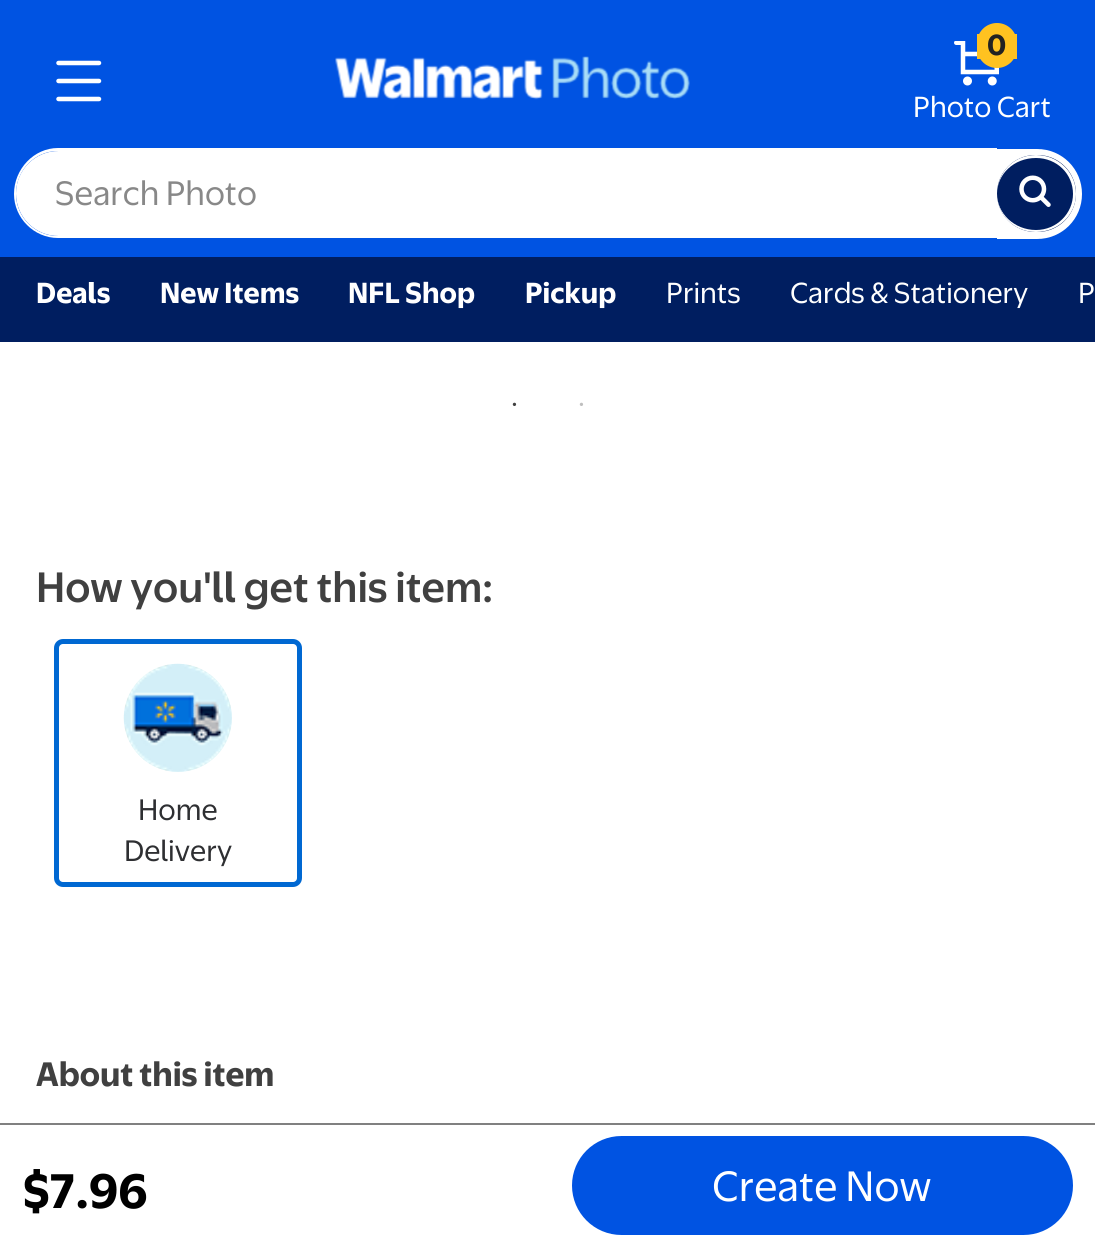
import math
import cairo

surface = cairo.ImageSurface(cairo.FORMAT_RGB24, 1095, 1245)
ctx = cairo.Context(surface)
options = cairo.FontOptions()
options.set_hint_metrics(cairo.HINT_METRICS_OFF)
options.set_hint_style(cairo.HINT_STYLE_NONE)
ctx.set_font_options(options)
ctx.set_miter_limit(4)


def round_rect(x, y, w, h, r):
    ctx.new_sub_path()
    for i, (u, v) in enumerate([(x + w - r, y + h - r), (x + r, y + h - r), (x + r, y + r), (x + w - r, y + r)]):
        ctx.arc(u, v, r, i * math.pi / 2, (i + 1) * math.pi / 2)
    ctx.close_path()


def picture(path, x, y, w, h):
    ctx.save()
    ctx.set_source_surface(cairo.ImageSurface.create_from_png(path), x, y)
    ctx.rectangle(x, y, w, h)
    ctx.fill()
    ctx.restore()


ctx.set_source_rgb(1, 1, 1)
ctx.paint()
ctx.set_source_rgb(0, 0.325, 0.886)
ctx.rectangle(0, 0, 1095, 257)
ctx.fill()
picture("img1.png", 56, 60, 46, 42)
picture("img2.png", 335, 56, 355, 44)
picture("img3.png", 954, 41, 45, 45)
ctx.set_source_rgb(1, 0.761, 0.125)
round_rect(977, 23, 40, 45, 20)
ctx.fill()
ctx.rectangle(1013, 34, 4, 25)
ctx.fill()
ctx.rectangle(977, 34, 4, 25)
ctx.fill()
ctx.select_font_face("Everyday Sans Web", cairo.FONT_SLANT_NORMAL, cairo.FONT_WEIGHT_BOLD)
ctx.set_font_size(27)
ctx.set_source_rgb(0.133, 0.133, 0.133)
ctx.move_to(987, 55)
ctx.show_text("0")
ctx.select_font_face("Everyday Sans Web")
ctx.set_source_rgb(1, 1, 1)
ctx.move_to(913, 117)
ctx.show_text("Photo Cart")
ctx.new_path()
ctx.move_to(58.5, 151)
ctx.line_to(997, 151)
ctx.line_to(997, 236)
ctx.line_to(58.5, 236)
ctx.curve_to(35, 236, 16, 217, 16, 193.5)
ctx.curve_to(16, 170, 35, 151, 58.5, 151)
ctx.close_path()
ctx.fill()
ctx.set_fill_rule(cairo.FILL_RULE_EVEN_ODD)
ctx.new_path()
ctx.move_to(58, 148)
ctx.line_to(997, 148)
ctx.line_to(997, 238)
ctx.line_to(58, 238)
ctx.curve_to(34, 238, 14, 218, 14, 194)
ctx.curve_to(14, 169, 34, 148, 58, 148)
ctx.close_path()
ctx.move_to(58, 151)
ctx.line_to(997, 151)
ctx.line_to(997, 236)
ctx.line_to(58, 236)
ctx.curve_to(35, 236, 16, 217, 16, 194)
ctx.curve_to(16, 170, 35, 151, 58, 151)
ctx.close_path()
ctx.fill()
ctx.set_font_size(31.5)
ctx.set_source_rgb(0.533, 0.533, 0.533)
ctx.move_to(55, 205)
ctx.show_text("Search Photo")
ctx.set_source_rgb(1, 1, 1)
ctx.new_path()
ctx.move_to(997, 149)
ctx.line_to(1037, 149)
ctx.curve_to(1062, 149, 1082, 169, 1082, 194)
ctx.curve_to(1082, 219, 1062, 239, 1037, 239)
ctx.line_to(997, 239)
ctx.close_path()
ctx.fill()
ctx.set_source_rgb(0, 0.118, 0.376)
round_rect(997, 155, 79, 77, 38.5)
ctx.fill()
ctx.set_source_rgb(1, 1, 1)
ctx.new_path()
ctx.move_to(1036, 155)
ctx.curve_to(1058, 155, 1076, 172, 1076, 194)
ctx.curve_to(1076, 215, 1058, 232, 1036, 232)
ctx.curve_to(1014, 232, 997, 215, 997, 194)
ctx.curve_to(997, 172, 1014, 155, 1036, 155)
ctx.close_path()
ctx.move_to(1036, 158)
ctx.curve_to(1057, 158, 1073, 174, 1073, 194)
ctx.curve_to(1073, 213, 1057, 230, 1036, 230)
ctx.curve_to(1014, 230, 997, 213, 997, 194)
ctx.curve_to(997, 174, 1014, 158, 1036, 158)
ctx.close_path()
ctx.fill()
picture("img4.png", 1019, 175, 32, 32)
ctx.set_source_rgb(0, 0.118, 0.376)
ctx.rectangle(0, 257, 1095, 85)
ctx.fill()
ctx.select_font_face("Everyday Sans Web", cairo.FONT_SLANT_NORMAL, cairo.FONT_WEIGHT_BOLD)
ctx.set_font_size(27)
ctx.set_source_rgb(1, 1, 1)
ctx.move_to(36, 303)
ctx.show_text("Deals")
ctx.move_to(160, 303)
ctx.show_text("New Items")
ctx.move_to(348, 303)
ctx.show_text("NFL Shop")
ctx.move_to(525, 303)
ctx.show_text("Pickup")
ctx.select_font_face("Everyday Sans Web")
ctx.move_to(666, 303)
ctx.show_text("Prints")
ctx.move_to(790, 303)
ctx.show_text("Cards & Stationery")
ctx.move_to(1078, 303)
ctx.show_text("P")
ctx.select_font_face("Liberation Serif")
ctx.set_font_size(14)
ctx.set_source_rgb(0.251, 0.251, 0.251)
ctx.move_to(512, 409)
ctx.show_text("•")
ctx.set_source_rgb(0.749, 0.749, 0.749)
ctx.move_to(579, 409)
ctx.show_text("•")
ctx.select_font_face("Everyday Sans Web Medium")
ctx.set_font_size(39.4)
ctx.set_source_rgb(0.251, 0.251, 0.251)
ctx.move_to(36, 602)
ctx.show_text("How you'll get this item:")
round_rect(56.5, 641.5, 243, 243, 6.5)
ctx.set_source_rgb(0, 0.408, 0.824)
ctx.set_line_width(5)
ctx.stroke()
ctx.set_source_rgb(0.914, 0.973, 0.988)
ctx.arc(178, 718, 54, 0, 2 * math.pi)
ctx.fill()
picture("img5.png", 123, 663, 109, 109)
ctx.select_font_face("Everyday Sans Web")
ctx.set_font_size(27.5)
ctx.set_source_rgb(0.18, 0.184, 0.196)
ctx.move_to(138, 820)
ctx.show_text("Home")
ctx.move_to(124, 861)
ctx.show_text("Delivery")
ctx.set_source_rgb(0.502, 0.502, 0.502)
ctx.rectangle(0, 1123, 1095, 2)
ctx.fill()
ctx.select_font_face("Everyday Sans Web", cairo.FONT_SLANT_NORMAL, cairo.FONT_WEIGHT_BOLD)
ctx.set_font_size(45)
ctx.set_source_rgb(0, 0, 0)
ctx.move_to(23, 1208)
ctx.show_text("$7.96")
ctx.set_source_rgb(0, 0.325, 0.886)
round_rect(573, 1137, 499, 97, 48.5)
ctx.fill_preserve()
ctx.set_line_width(2)
ctx.stroke()
ctx.select_font_face("Everyday Sans Web")
ctx.set_font_size(39.4)
ctx.set_source_rgb(1, 1, 1)
ctx.move_to(712, 1201)
ctx.show_text("Create Now")
ctx.select_font_face("Everyday Sans Web", cairo.FONT_SLANT_NORMAL, cairo.FONT_WEIGHT_BOLD)
ctx.set_font_size(31.5)
ctx.set_source_rgb(0.251, 0.251, 0.251)
ctx.move_to(36, 1086)
ctx.show_text("About this item")
surface.write_to_png("page.png")
